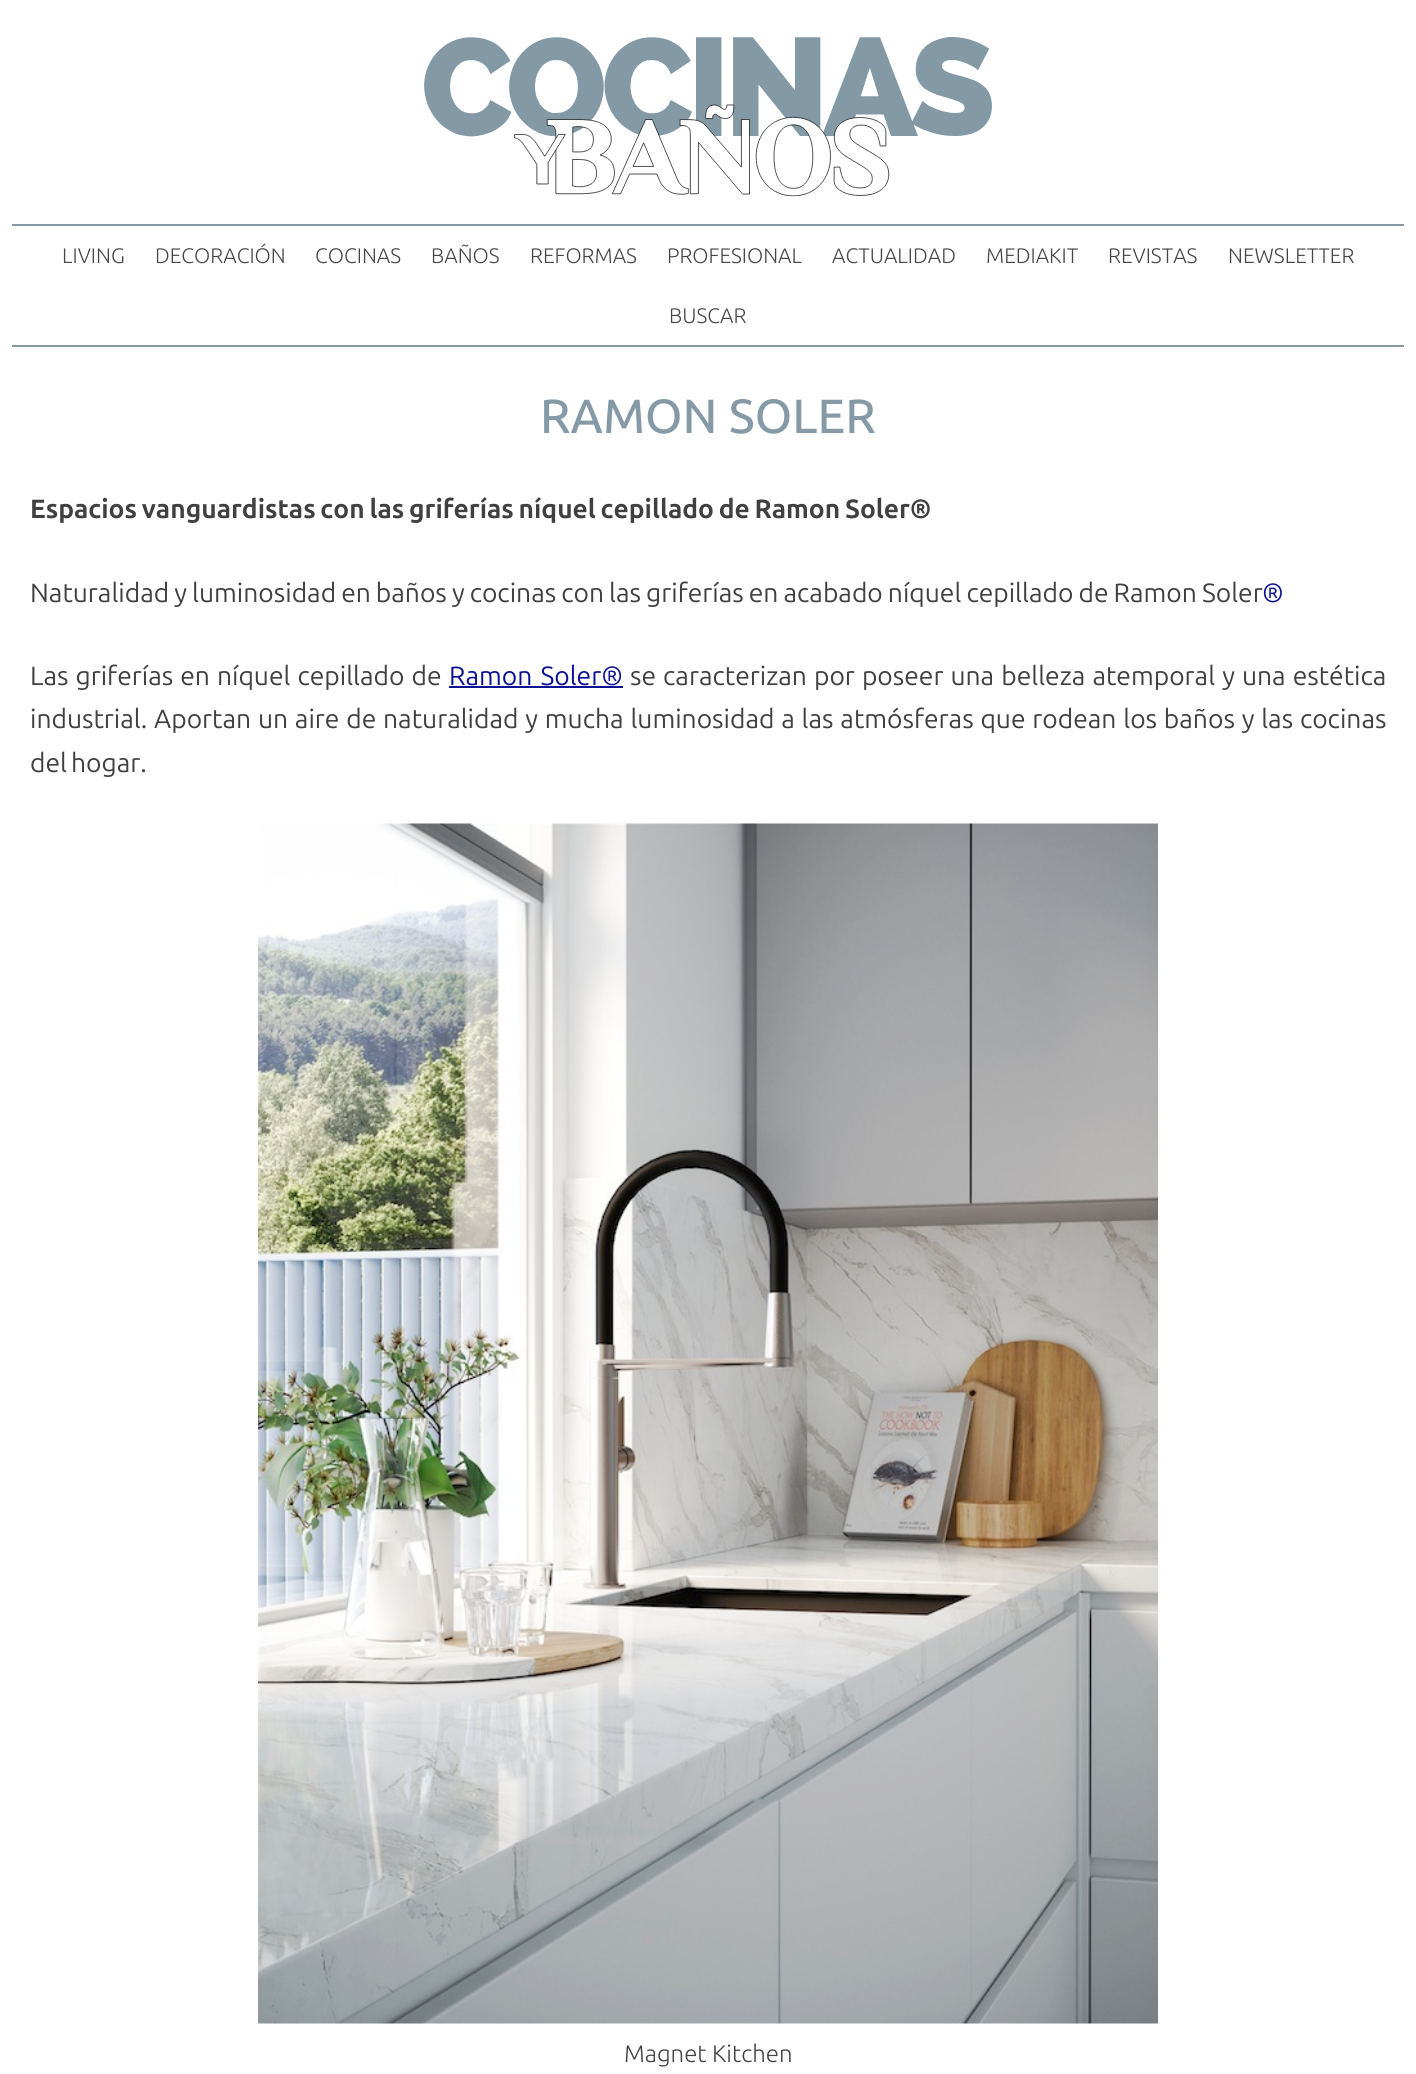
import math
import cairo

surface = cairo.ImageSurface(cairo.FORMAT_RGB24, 1416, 2074)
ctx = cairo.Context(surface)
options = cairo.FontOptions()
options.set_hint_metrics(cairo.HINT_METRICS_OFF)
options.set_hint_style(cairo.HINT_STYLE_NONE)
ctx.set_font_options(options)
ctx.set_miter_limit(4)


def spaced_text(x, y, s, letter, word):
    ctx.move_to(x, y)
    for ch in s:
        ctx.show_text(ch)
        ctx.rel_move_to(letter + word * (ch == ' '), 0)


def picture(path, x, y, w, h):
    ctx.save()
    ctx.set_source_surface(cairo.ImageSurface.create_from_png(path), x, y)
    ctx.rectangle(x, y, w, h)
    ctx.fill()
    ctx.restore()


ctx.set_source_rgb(1, 1, 1)
ctx.paint()
picture("img1.png", 424, 37, 568, 160)
ctx.set_source_rgb(0.525, 0.6, 0.651)
ctx.rectangle(12, 224, 1392, 2)
ctx.fill()
ctx.rectangle(12, 345, 1392, 2)
ctx.fill()
ctx.select_font_face("Ubuntu Light")
ctx.set_font_size(21)
ctx.set_source_rgb(0.275, 0.275, 0.275)
ctx.move_to(62, 263)
ctx.show_text("LIVING")
ctx.move_to(155, 263)
ctx.show_text("DECORACIÓN")
ctx.move_to(315, 263)
ctx.show_text("COCINAS")
ctx.move_to(431, 263)
ctx.show_text("BAÑOS")
ctx.move_to(530, 263)
ctx.show_text("REFORMAS")
ctx.move_to(667, 263)
ctx.show_text("PROFESIONAL")
ctx.move_to(832, 263)
ctx.show_text("ACTUALIDAD")
ctx.move_to(986, 263)
ctx.show_text("MEDIAKIT")
ctx.move_to(1108, 263)
ctx.show_text("REVISTAS")
ctx.move_to(1228, 263)
ctx.show_text("NEWSLETTER")
ctx.move_to(669, 323)
ctx.show_text("BUSCAR")
ctx.select_font_face("Ubuntu Medium")
ctx.set_font_size(48)
ctx.set_source_rgb(0.525, 0.6, 0.651)
ctx.move_to(540, 433)
ctx.show_text("RAMON SOLER")
ctx.select_font_face("Ubuntu", cairo.FONT_SLANT_NORMAL, cairo.FONT_WEIGHT_BOLD)
ctx.set_font_size(26.4)
ctx.set_source_rgb(0.251, 0.251, 0.251)
spaced_text(30, 518, "Espacios vanguardistas con las griferías níquel cepillado de Ramon Soler®", 0, -1.5)
ctx.select_font_face("Ubuntu")
spaced_text(30, 602, "Naturalidad y luminosidad en baños y cocinas con las griferías en acabado níquel cepillado de Ramon Soler", 0, -1)
ctx.set_source_rgb(0.051, 0.071, 0.576)
ctx.move_to(1262, 602)
ctx.show_text("®")
ctx.set_source_rgb(0.251, 0.251, 0.251)
spaced_text(30, 685, "Las griferías en níquel cepillado de", 0, 1)
ctx.set_source_rgb(0.051, 0.071, 0.576)
spaced_text(449, 685, "Ramon Soler®", 0, 2)
ctx.rectangle(449, 686, 174, 2)
ctx.fill()
ctx.set_source_rgb(0.251, 0.251, 0.251)
spaced_text(630, 685, "se caracterizan por poseer una belleza atemporal y una estética", 0, 1)
spaced_text(30, 728, "industrial. Aportan un aire de naturalidad y mucha luminosidad a las atmósferas que rodean los baños y las cocinas", 0, 0.75)
spaced_text(30, 772, "del hogar.", 0, -2)
picture("img2.png", 258, 823, 900, 1201)
ctx.select_font_face("Ubuntu Light")
ctx.set_font_size(24)
ctx.move_to(624, 2062)
ctx.show_text("Magnet Kitchen")
surface.write_to_png("page.png")
